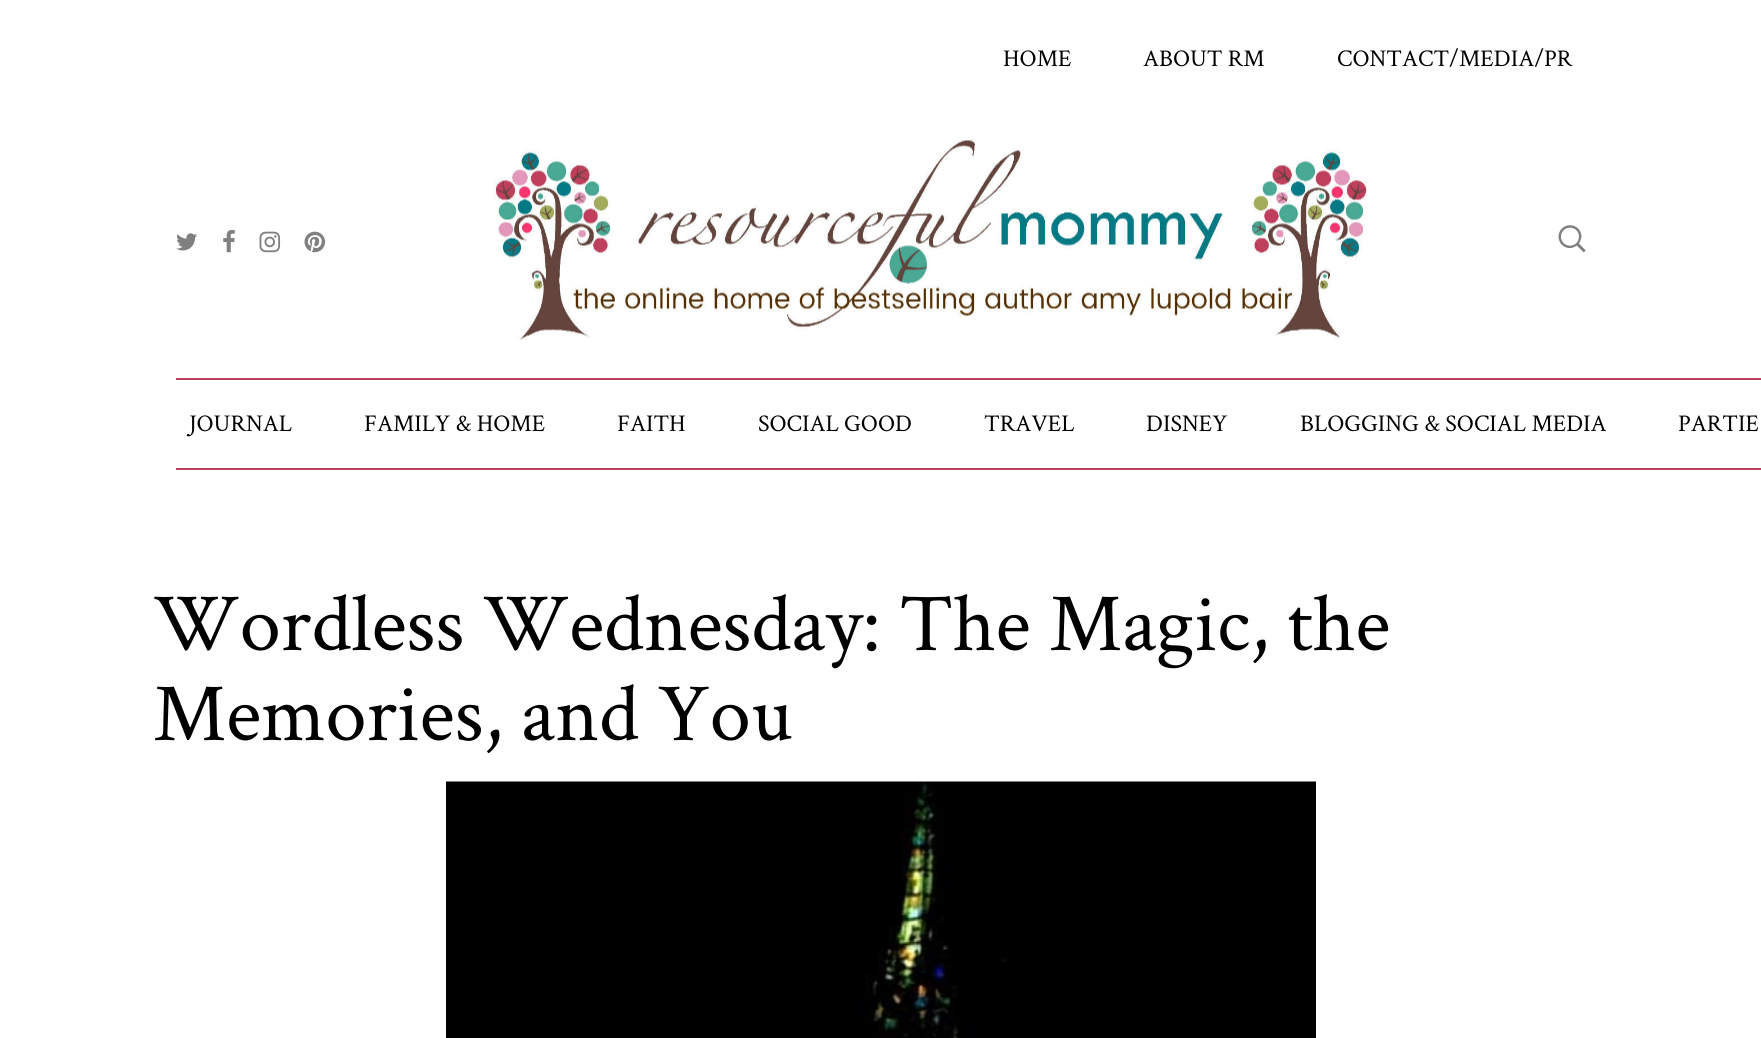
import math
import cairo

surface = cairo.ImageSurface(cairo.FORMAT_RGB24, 1761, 1038)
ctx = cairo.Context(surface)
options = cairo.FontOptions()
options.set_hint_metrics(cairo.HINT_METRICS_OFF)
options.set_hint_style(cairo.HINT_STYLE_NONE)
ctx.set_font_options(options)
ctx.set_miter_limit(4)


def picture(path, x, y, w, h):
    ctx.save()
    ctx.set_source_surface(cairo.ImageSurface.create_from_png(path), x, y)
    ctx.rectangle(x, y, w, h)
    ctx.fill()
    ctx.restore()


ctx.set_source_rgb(1, 1, 1)
ctx.paint()
ctx.select_font_face("Crimson Text")
ctx.set_font_size(24)
ctx.set_source_rgb(0, 0, 0)
ctx.move_to(1003, 66)
ctx.show_text("HOME")
ctx.move_to(1143, 66)
ctx.show_text("ABOUT RM")
ctx.move_to(1337, 66)
ctx.show_text("CONTACT/MEDIA/PR")
picture("img1.png", 176, 233, 21, 18)
picture("img2.png", 223, 229, 12, 24)
picture("img3.png", 259, 231, 22, 22)
picture("img4.png", 304, 231, 22, 22)
picture("img5.png", 493, 137, 874, 203)
picture("img6.png", 1558, 225, 28, 28)
ctx.set_source_rgb(0.733, 0.247, 0.357)
ctx.rectangle(176, 378, 1585, 2)
ctx.fill()
ctx.rectangle(176, 468, 1585, 2)
ctx.fill()
ctx.set_source_rgb(0, 0, 0)
ctx.move_to(189, 431)
ctx.show_text("JOURNAL")
ctx.move_to(364, 431)
ctx.show_text("FAMILY & HOME")
ctx.move_to(617, 431)
ctx.show_text("FAITH")
ctx.move_to(758, 431)
ctx.show_text("SOCIAL GOOD")
ctx.move_to(984, 431)
ctx.show_text("TRAVEL")
ctx.move_to(1146, 431)
ctx.show_text("DISNEY")
ctx.move_to(1300, 431)
ctx.show_text("BLOGGING & SOCIAL MEDIA")
ctx.move_to(1678, 431)
ctx.show_text("PARTIE")
ctx.set_font_size(82.5)
ctx.move_to(153, 650)
ctx.show_text("Wordless Wednesday: The Magic, the")
ctx.move_to(153, 740)
ctx.show_text("Memories, and You")
picture("img7.png", 446, 781, 870, 257)
surface.write_to_png("page.png")
